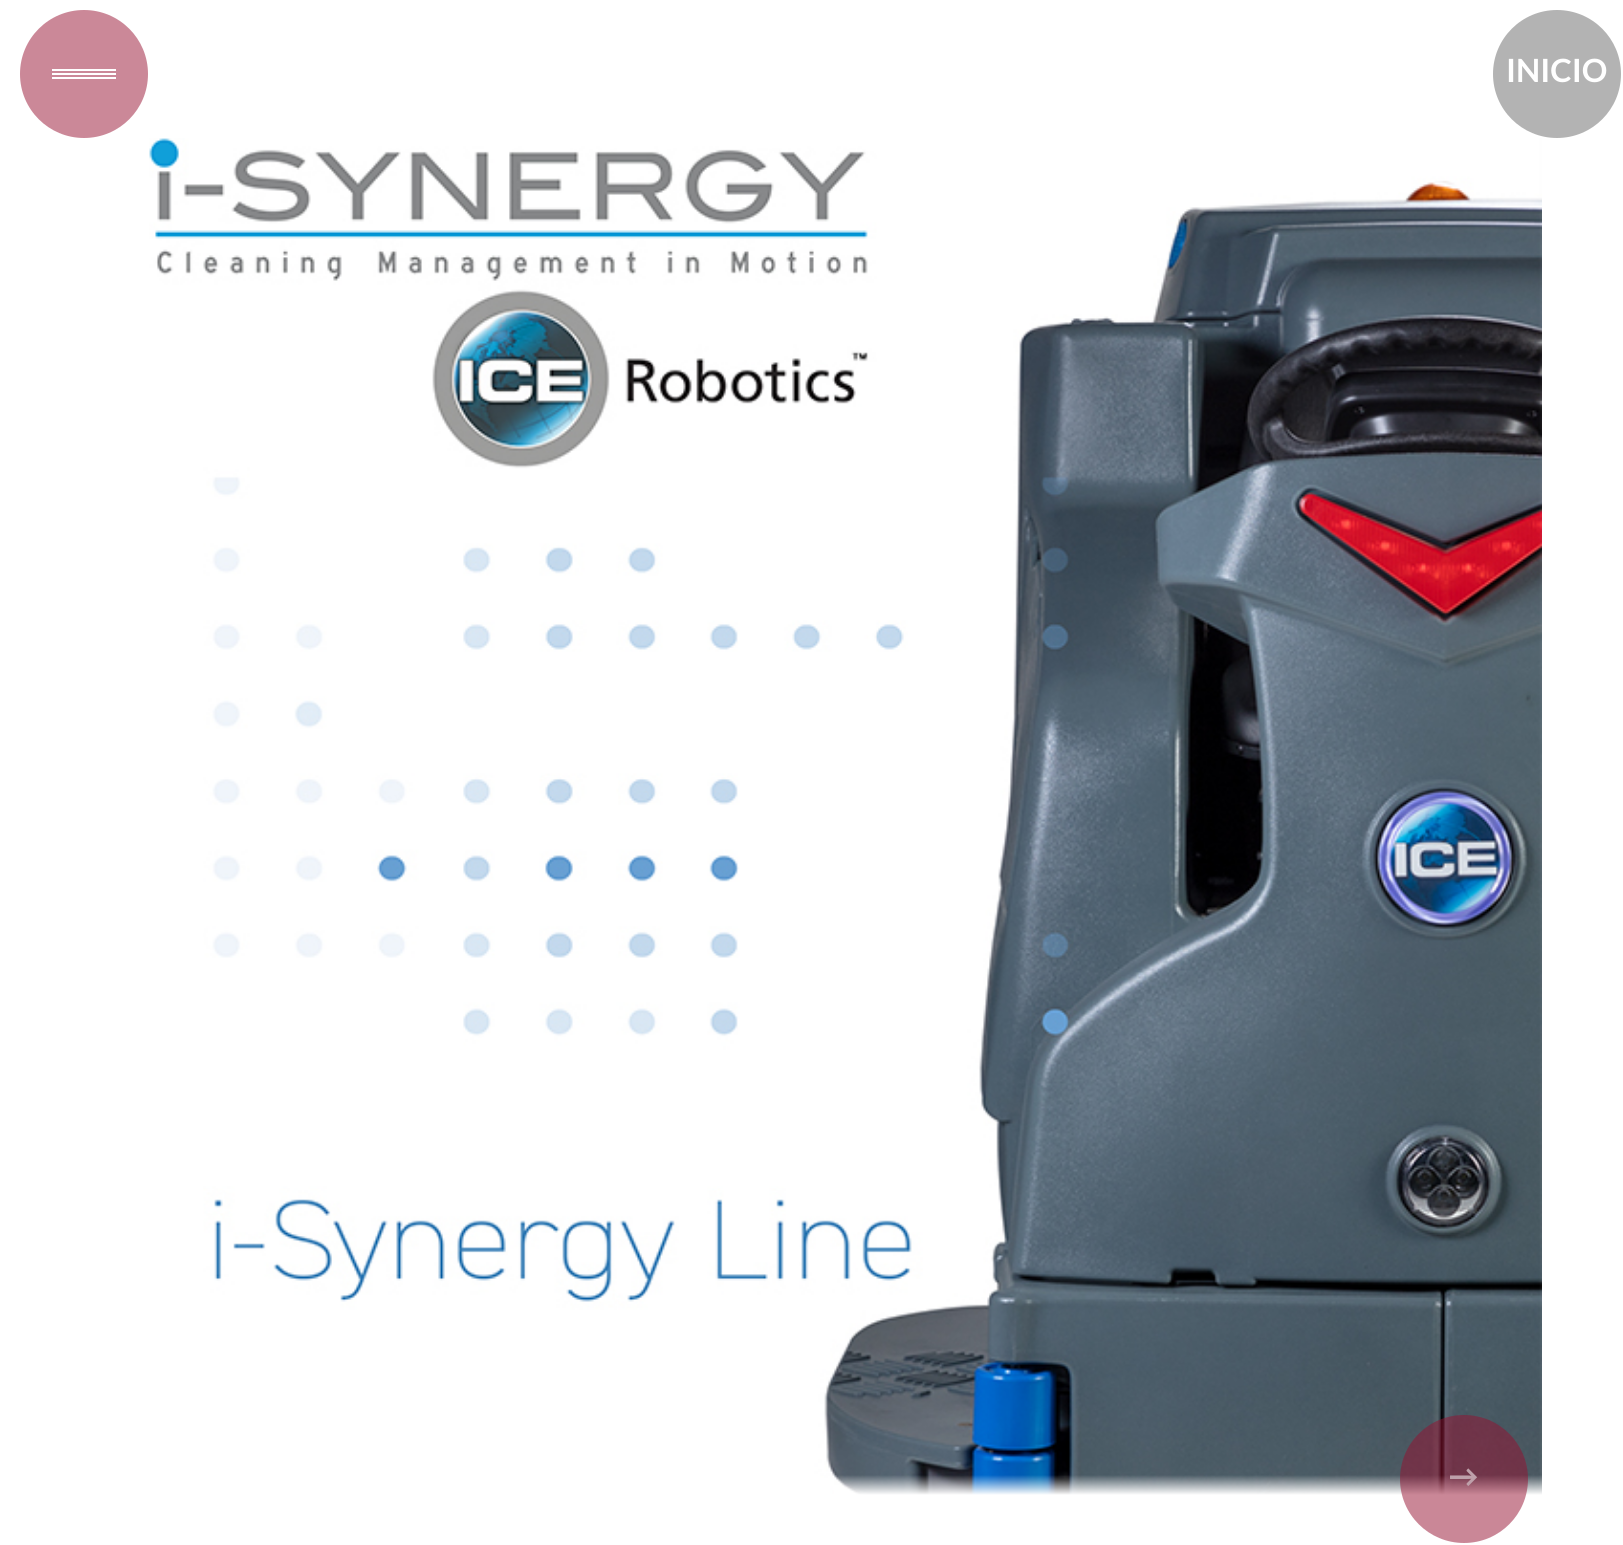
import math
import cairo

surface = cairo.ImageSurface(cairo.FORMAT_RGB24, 1623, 1545)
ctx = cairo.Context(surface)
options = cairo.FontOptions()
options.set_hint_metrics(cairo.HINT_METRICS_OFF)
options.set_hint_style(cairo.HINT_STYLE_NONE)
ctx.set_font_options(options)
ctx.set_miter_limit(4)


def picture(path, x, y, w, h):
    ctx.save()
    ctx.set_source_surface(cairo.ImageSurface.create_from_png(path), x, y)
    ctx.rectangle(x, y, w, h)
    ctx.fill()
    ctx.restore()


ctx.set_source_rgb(1, 1, 1)
ctx.paint()
ctx.set_source_rgb(0.796, 0.533, 0.596)
ctx.arc(84, 74, 64, 0, 2 * math.pi)
ctx.fill()
ctx.set_source_rgb(1, 1, 1)
ctx.rectangle(52, 77, 64, 2)
ctx.fill()
ctx.rectangle(52, 69, 64, 2)
ctx.fill()
ctx.rectangle(52, 73, 64, 2)
ctx.fill()
ctx.set_source_rgb(0.702, 0.702, 0.702)
ctx.arc(1557, 74, 64, 0, 2 * math.pi)
ctx.fill()
ctx.select_font_face("Lato", cairo.FONT_SLANT_NORMAL, cairo.FONT_WEIGHT_BOLD)
ctx.set_font_size(32)
ctx.set_source_rgb(1, 1, 1)
ctx.move_to(1506, 82)
ctx.show_text("INICIO")
picture("img1.png", 149, 138, 1393, 1357)
gradient = cairo.LinearGradient(812, 1495, 812, 1475)
gradient.add_color_stop_rgba(0, 1, 1, 1, 1)
gradient.add_color_stop_rgba(1, 1, 1, 1, 0)
ctx.set_source(gradient)
ctx.rectangle(834, 1475, 708, 20)
ctx.fill()
ctx.set_source_rgba(0.588, 0.063, 0.192, 0.5)
ctx.arc(1464, 1479, 64, 0, 2 * math.pi)
ctx.fill()
ctx.select_font_face("Carlito", cairo.FONT_SLANT_NORMAL, cairo.FONT_WEIGHT_BOLD)
ctx.set_source_rgb(0.745, 0.627, 0.667)
ctx.move_to(1449, 1487)
ctx.show_text("→")
surface.write_to_png("page.png")
